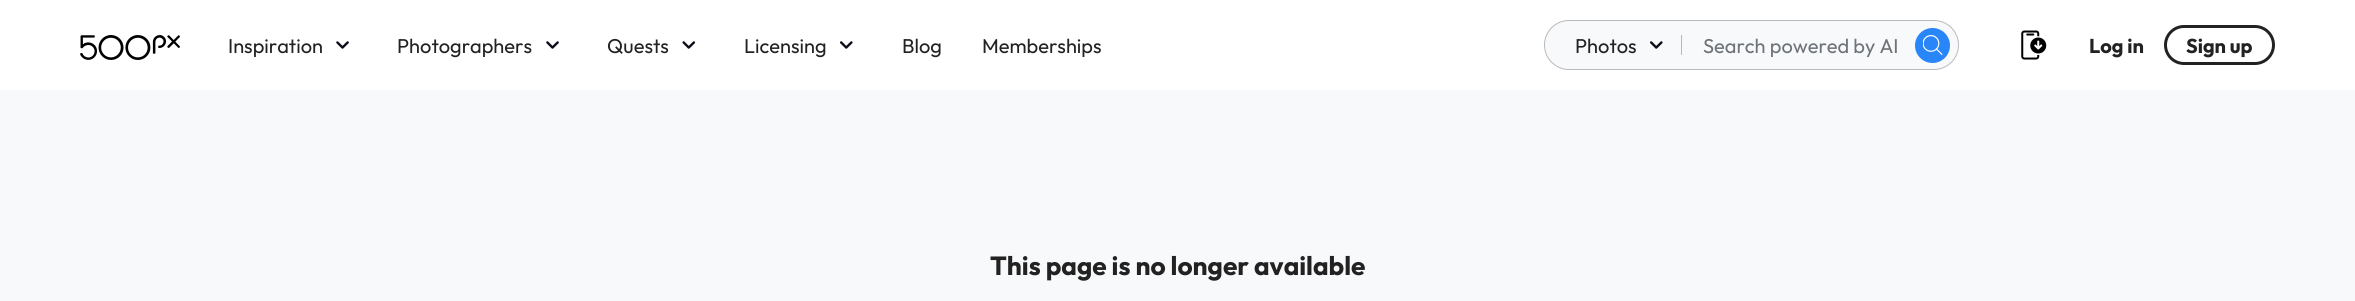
import math
import cairo

surface = cairo.ImageSurface(cairo.FORMAT_RGB24, 2355, 301)
ctx = cairo.Context(surface)
options = cairo.FontOptions()
options.set_hint_metrics(cairo.HINT_METRICS_OFF)
options.set_hint_style(cairo.HINT_STYLE_NONE)
ctx.set_font_options(options)
ctx.set_miter_limit(4)


def round_rect(x, y, w, h, r):
    ctx.new_sub_path()
    for i, (u, v) in enumerate([(x + w - r, y + h - r), (x + r, y + h - r), (x + r, y + r), (x + w - r, y + r)]):
        ctx.arc(u, v, r, i * math.pi / 2, (i + 1) * math.pi / 2)
    ctx.close_path()


def picture(path, x, y, w, h):
    ctx.save()
    ctx.set_source_surface(cairo.ImageSurface.create_from_png(path), x, y)
    ctx.rectangle(x, y, w, h)
    ctx.fill()
    ctx.restore()


ctx.set_source_rgb(1, 1, 1)
ctx.paint()
picture("img1.png", 80, 35, 100, 25)
ctx.select_font_face("Outfit")
ctx.set_font_size(20)
ctx.set_source_rgb(0.133, 0.133, 0.133)
ctx.move_to(228, 53)
ctx.show_text("Inspiration")
picture("img2.png", 336, 41, 13, 8)
ctx.move_to(397, 53)
ctx.show_text("Photographers")
picture("img2.png", 546, 41, 13, 8)
ctx.move_to(607, 53)
ctx.show_text("Quests")
picture("img3.png", 682, 41, 14, 8)
ctx.move_to(744, 53)
ctx.show_text("Licensing")
picture("img4.png", 840, 41, 13, 8)
ctx.move_to(902, 53)
ctx.show_text("Blog")
ctx.move_to(982, 53)
ctx.show_text("Memberships")
ctx.set_source_rgb(0.969, 0.973, 0.98)
round_rect(1544.5, 20.5, 414, 49, 24.5)
ctx.fill_preserve()
ctx.set_source_rgb(0.725, 0.729, 0.745)
ctx.set_line_width(1)
ctx.stroke()
ctx.set_source_rgb(0.133, 0.133, 0.133)
ctx.move_to(1575, 53)
ctx.show_text("Photos")
picture("img5.png", 1650, 41, 13, 8)
ctx.set_source_rgb(0.714, 0.725, 0.733)
ctx.rectangle(1681, 35, 1, 20)
ctx.fill()
ctx.set_source_rgb(0.427, 0.451, 0.471)
ctx.move_to(1703, 53)
ctx.show_text("Search powered by AI")
ctx.set_source_rgb(0.161, 0.525, 0.969)
ctx.new_path()
ctx.arc(1932.5, 45.5, 17.5, 0, 2 * math.pi)
ctx.fill()
picture("img6.png", 1923, 35, 20, 20)
picture("img7.png", 2021, 30, 26, 30)
ctx.select_font_face("Outfit", cairo.FONT_SLANT_NORMAL, cairo.FONT_WEIGHT_BOLD)
ctx.set_source_rgb(0.133, 0.133, 0.133)
ctx.move_to(2089, 53)
ctx.show_text("Log in")
round_rect(2165.5, 26.5, 108, 37, 18.5)
ctx.set_line_width(3)
ctx.stroke()
ctx.move_to(2186, 53)
ctx.show_text("Sign up")
ctx.set_source_rgb(0.969, 0.973, 0.98)
ctx.rectangle(0, 90, 2355, 211)
ctx.fill()
ctx.set_font_size(26.25)
ctx.set_source_rgb(0.133, 0.133, 0.133)
ctx.move_to(990, 275)
ctx.show_text("This page is no longer available")
surface.write_to_png("page.png")
